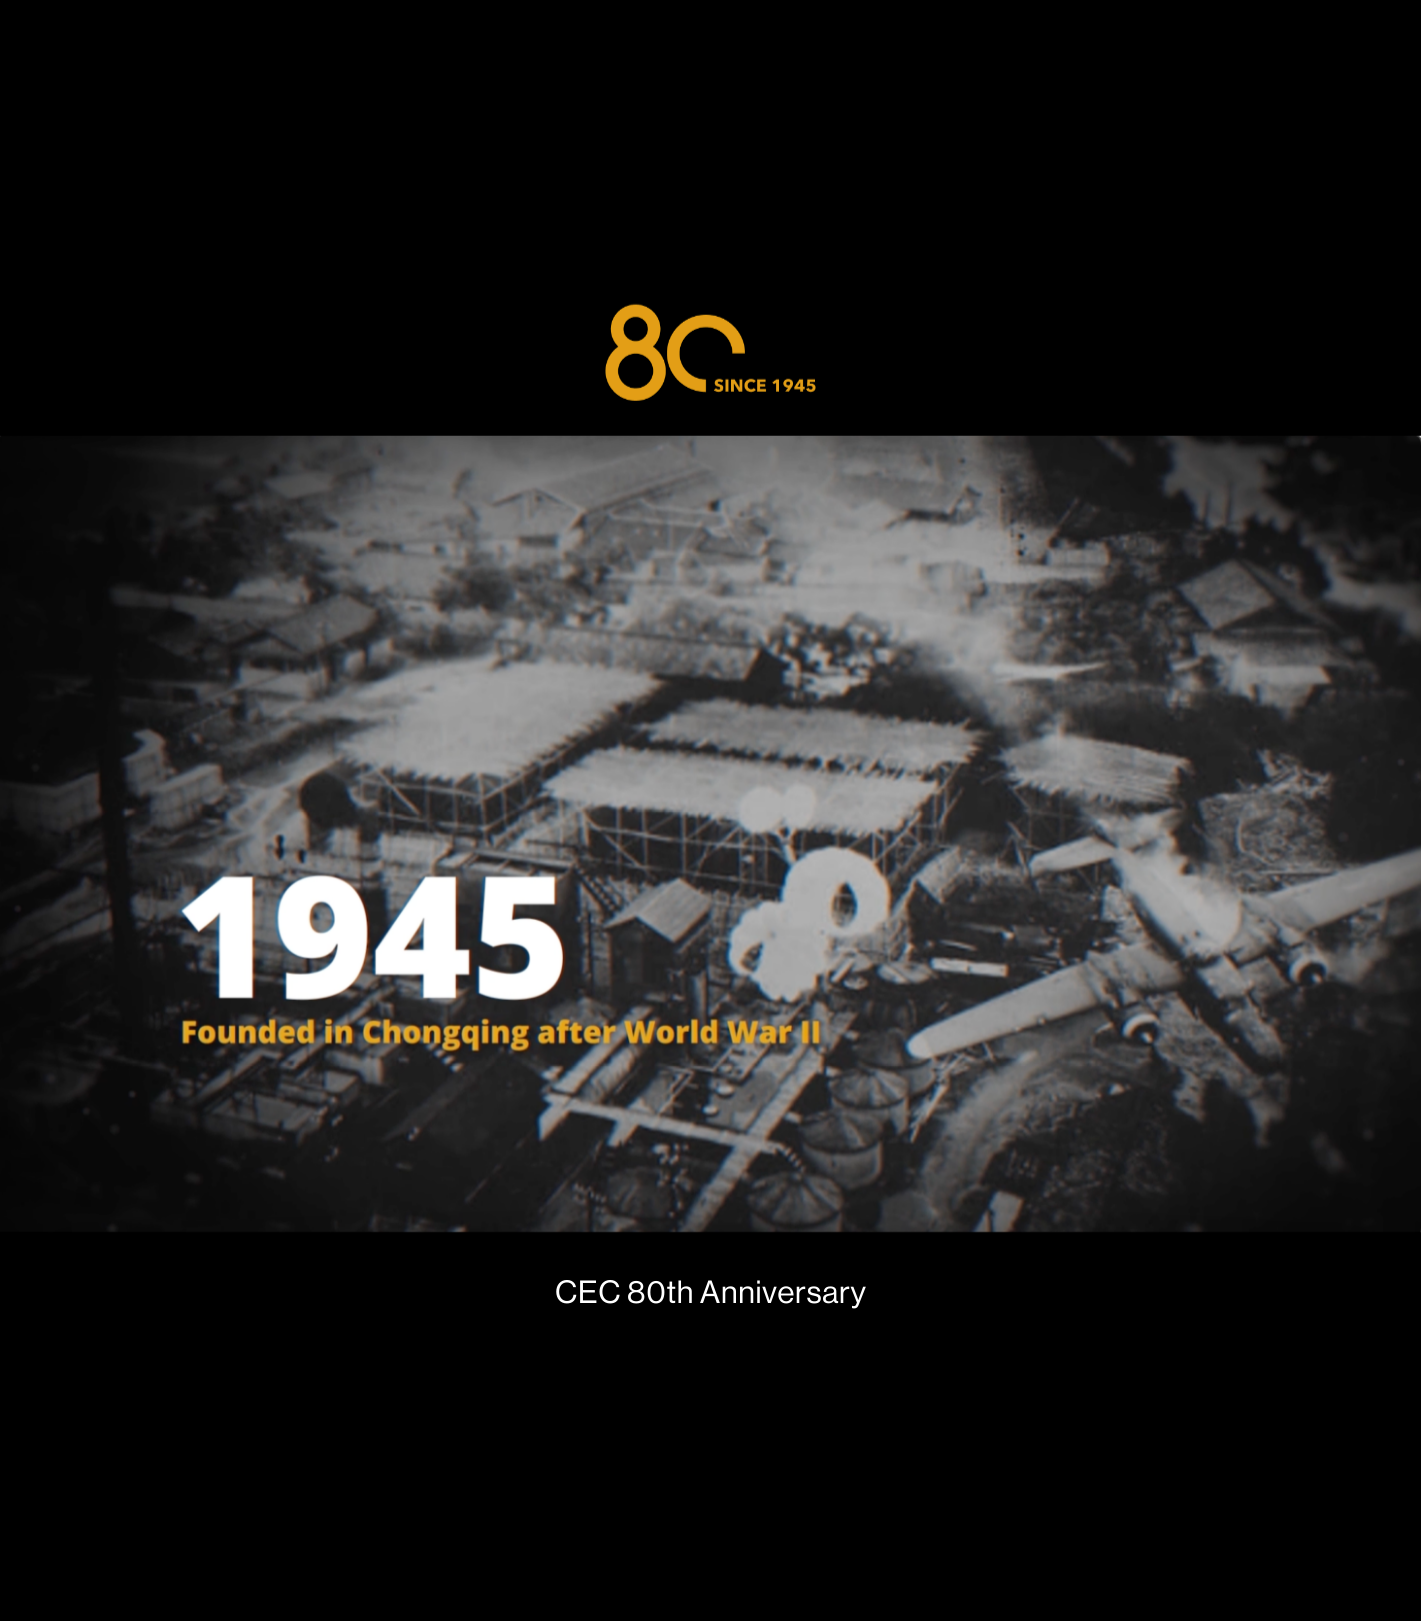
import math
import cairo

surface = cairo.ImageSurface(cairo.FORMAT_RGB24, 1421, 1621)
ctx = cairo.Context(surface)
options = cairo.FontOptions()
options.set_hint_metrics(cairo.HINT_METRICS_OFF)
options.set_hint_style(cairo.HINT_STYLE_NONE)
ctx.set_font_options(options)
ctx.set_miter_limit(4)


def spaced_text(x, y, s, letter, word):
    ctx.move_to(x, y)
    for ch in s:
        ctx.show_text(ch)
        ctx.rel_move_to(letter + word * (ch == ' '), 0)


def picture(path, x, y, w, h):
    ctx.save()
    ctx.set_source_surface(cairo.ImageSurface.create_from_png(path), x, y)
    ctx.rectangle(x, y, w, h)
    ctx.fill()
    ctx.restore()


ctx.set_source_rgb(0, 0, 0)
ctx.paint()
picture("img1.png", 605, 303, 211, 98)
picture("img2.png", 0, 435, 1421, 798)
ctx.select_font_face("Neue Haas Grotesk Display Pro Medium")
ctx.set_font_size(31.5)
ctx.set_source_rgb(1, 1, 1)
spaced_text(555, 1303, "CEC 80th Anniversary", 0.7, 0)
surface.write_to_png("page.png")
